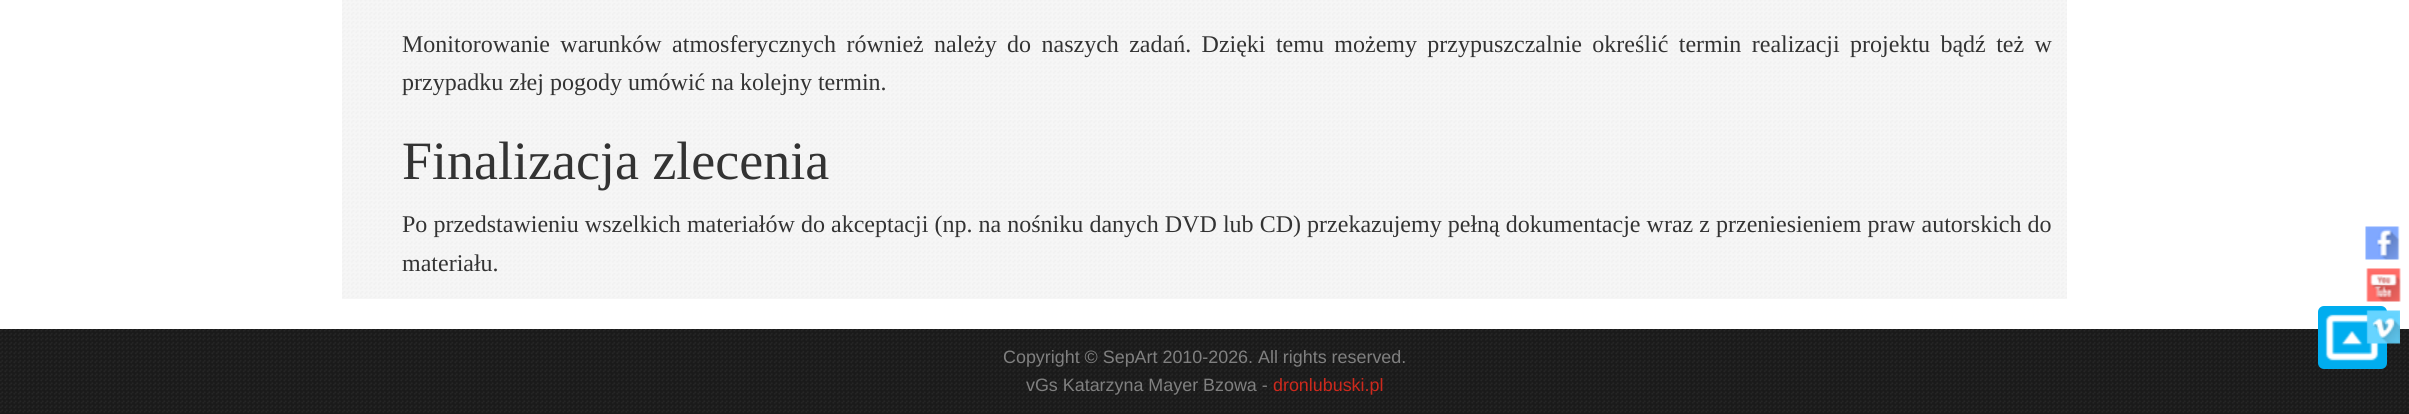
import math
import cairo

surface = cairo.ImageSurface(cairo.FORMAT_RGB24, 2409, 414)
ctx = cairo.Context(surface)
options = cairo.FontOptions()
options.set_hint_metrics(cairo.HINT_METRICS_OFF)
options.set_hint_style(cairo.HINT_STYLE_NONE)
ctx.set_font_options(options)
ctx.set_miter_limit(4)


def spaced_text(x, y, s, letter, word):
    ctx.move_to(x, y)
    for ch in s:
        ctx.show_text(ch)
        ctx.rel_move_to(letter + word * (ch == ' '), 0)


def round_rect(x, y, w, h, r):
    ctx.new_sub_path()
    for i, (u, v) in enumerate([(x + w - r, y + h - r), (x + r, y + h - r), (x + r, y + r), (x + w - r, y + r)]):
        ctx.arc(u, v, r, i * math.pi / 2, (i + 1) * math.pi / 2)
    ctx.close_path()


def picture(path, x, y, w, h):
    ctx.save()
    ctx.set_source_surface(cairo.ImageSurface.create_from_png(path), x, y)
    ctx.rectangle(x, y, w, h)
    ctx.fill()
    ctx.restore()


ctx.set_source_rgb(1, 1, 1)
ctx.paint()
ctx.set_source_rgb(0.961, 0.961, 0.961)
ctx.rectangle(342, 0, 1725, 299)
ctx.fill()
picture("img1.png", 342, 0, 1725, 298)
ctx.select_font_face("Liberation Serif")
ctx.set_font_size(24)
ctx.set_source_rgb(0.2, 0.2, 0.2)
spaced_text(402, 52, "Monitorowanie warunków atmosferycznych również należy do naszych zadań. Dzięki temu możemy przypuszczalnie określić termin realizacji projektu bądź też w", 0, 4.4)
ctx.move_to(402, 90)
ctx.show_text("przypadku złej pogody umówić na kolejny termin.")
ctx.set_font_size(54)
ctx.move_to(402, 179)
ctx.show_text("Finalizacja zlecenia")
ctx.set_font_size(24)
spaced_text(402, 232, "Po przedstawieniu wszelkich materiałów do akceptacji (np. na nośniku danych DVD lub CD) przekazujemy pełną dokumentacje wraz z przeniesieniem praw autorskich do", 0, 0.1)
ctx.move_to(402, 271)
ctx.show_text("materiału.")
ctx.set_source_rgb(0.102, 0.102, 0.102)
ctx.rectangle(0, 329, 2409, 85)
ctx.fill()
picture("img2.png", 0, 329, 2409, 84)
ctx.select_font_face("Liberation Sans")
ctx.set_font_size(17.9)
ctx.set_source_rgb(0.502, 0.502, 0.502)
ctx.move_to(1003, 363)
ctx.show_text("Copyright © SepArt 2010-2026. All rights reserved.")
ctx.move_to(1026, 391)
ctx.show_text("vGs Katarzyna Mayer Bzowa -")
ctx.set_source_rgb(0.804, 0.161, 0.114)
ctx.move_to(1273, 391)
ctx.show_text("dronlubuski.pl")
ctx.set_source_rgb(0, 0.678, 0.937)
round_rect(2318, 306, 69, 63, 6)
ctx.fill()
picture("img3.png", 2325, 314, 54, 47)
picture("img4.png", 2365, 226, 35, 34)
picture("img5.png", 2366, 268, 35, 34)
picture("img6.png", 2366, 310, 34, 34)
surface.write_to_png("page.png")
